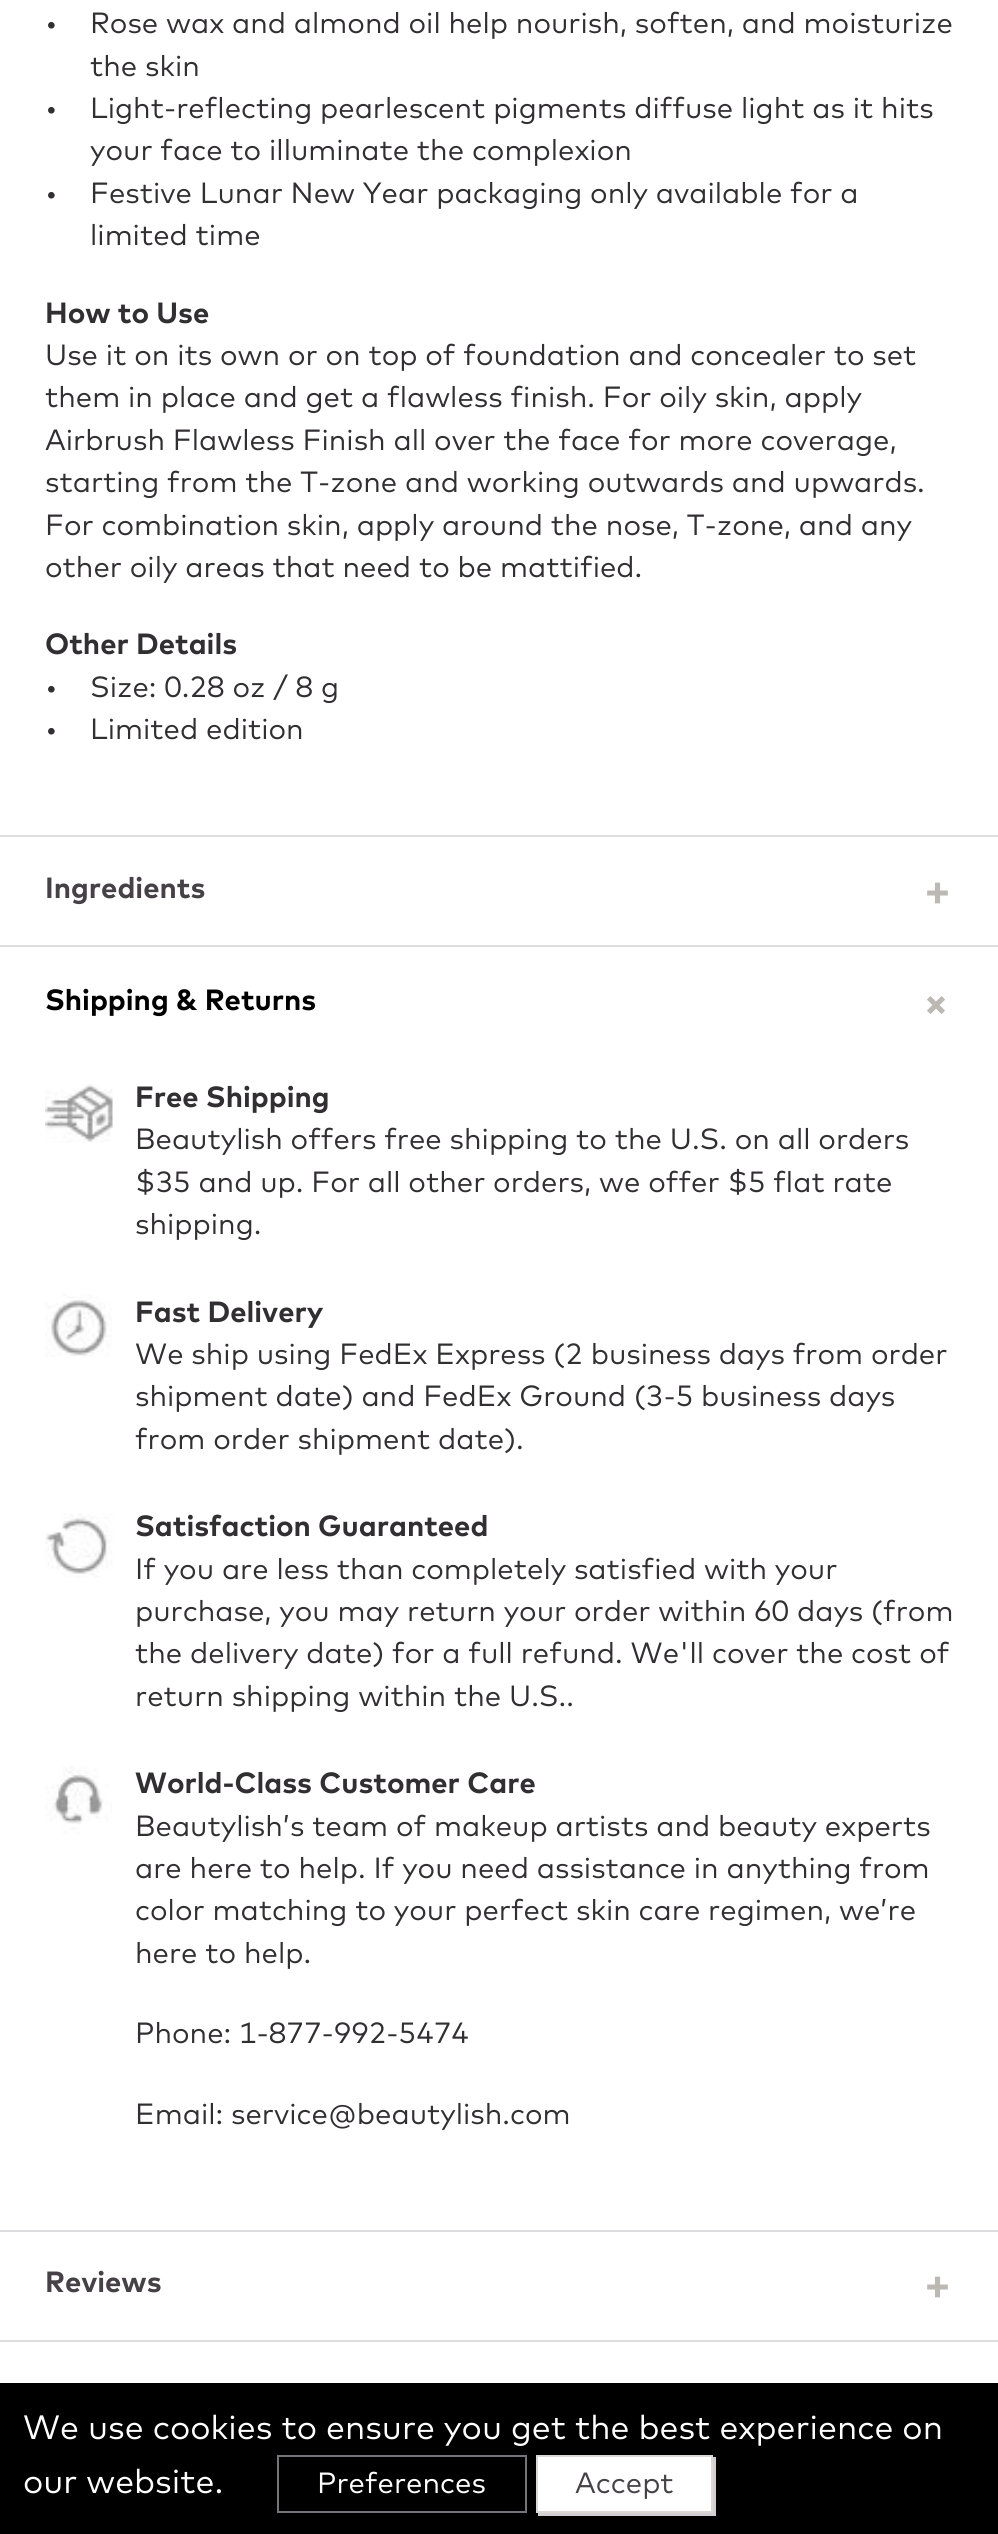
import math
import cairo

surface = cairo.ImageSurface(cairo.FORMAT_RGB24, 998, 2534)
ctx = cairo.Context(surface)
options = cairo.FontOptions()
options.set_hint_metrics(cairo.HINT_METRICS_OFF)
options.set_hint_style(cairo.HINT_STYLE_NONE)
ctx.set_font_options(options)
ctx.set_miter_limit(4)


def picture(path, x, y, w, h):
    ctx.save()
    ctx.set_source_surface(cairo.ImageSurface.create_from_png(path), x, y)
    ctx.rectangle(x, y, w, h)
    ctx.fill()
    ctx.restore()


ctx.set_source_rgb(1, 1, 1)
ctx.paint()
ctx.set_source_rgb(0.863, 0.867, 0.871)
ctx.rectangle(0, 2340, 998, 2)
ctx.fill()
ctx.select_font_face("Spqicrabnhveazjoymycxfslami")
ctx.set_font_size(29.25)
ctx.set_source_rgb(0.196, 0.184, 0.2)
ctx.move_to(45, 33)
ctx.show_text("•")
ctx.move_to(90, 33)
ctx.show_text("Rose wax and almond oil help nourish, soften, and moisturize")
ctx.move_to(90, 76)
ctx.show_text("the skin")
ctx.move_to(45, 118)
ctx.show_text("•")
ctx.move_to(90, 118)
ctx.show_text("Light-reflecting pearlescent pigments diffuse light as it hits")
ctx.move_to(90, 160)
ctx.show_text("your face to illuminate the complexion")
ctx.move_to(45, 203)
ctx.show_text("•")
ctx.move_to(90, 203)
ctx.show_text("Festive Lunar New Year packaging only available for a")
ctx.move_to(90, 245)
ctx.show_text("limited time")
ctx.select_font_face("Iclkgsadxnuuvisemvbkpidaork", cairo.FONT_SLANT_NORMAL, cairo.FONT_WEIGHT_BOLD)
ctx.move_to(45, 323)
ctx.show_text("How to Use")
ctx.select_font_face("Spqicrabnhveazjoymycxfslami")
ctx.move_to(45, 365)
ctx.show_text("Use it on its own or on top of foundation and concealer to set")
ctx.move_to(45, 407)
ctx.show_text("them in place and get a flawless finish. For oily skin, apply")
ctx.move_to(45, 450)
ctx.show_text("Airbrush Flawless Finish all over the face for more coverage,")
ctx.move_to(45, 492)
ctx.show_text("starting from the T-zone and working outwards and upwards.")
ctx.move_to(45, 535)
ctx.show_text("For combination skin, apply around the nose, T-zone, and any")
ctx.move_to(45, 577)
ctx.show_text("other oily areas that need to be mattified.")
ctx.select_font_face("Iclkgsadxnuuvisemvbkpidaork", cairo.FONT_SLANT_NORMAL, cairo.FONT_WEIGHT_BOLD)
ctx.move_to(45, 654)
ctx.show_text("Other Details")
ctx.select_font_face("Spqicrabnhveazjoymycxfslami")
ctx.move_to(45, 697)
ctx.show_text("•")
ctx.move_to(90, 697)
ctx.show_text("Size: 0.28 oz / 8 g")
ctx.move_to(45, 739)
ctx.show_text("•")
ctx.move_to(90, 739)
ctx.show_text("Limited edition")
ctx.set_source_rgb(0.863, 0.867, 0.871)
ctx.rectangle(0, 835, 998, 2)
ctx.fill()
ctx.select_font_face("Iclkgsadxnuuvisemvbkpidaork", cairo.FONT_SLANT_NORMAL, cairo.FONT_WEIGHT_BOLD)
ctx.set_source_rgb(0.275, 0.255, 0.278)
ctx.move_to(45, 898)
ctx.show_text("Ingredients")
ctx.set_font_size(45)
ctx.set_source_rgb(0.737, 0.725, 0.706)
ctx.move_to(924, 905)
ctx.show_text("+")
ctx.set_source_rgb(0.863, 0.867, 0.871)
ctx.rectangle(0, 945, 998, 2)
ctx.fill()
ctx.set_font_size(29.25)
ctx.set_source_rgb(0, 0, 0)
ctx.move_to(45, 1010)
ctx.show_text("Shipping & Returns")
ctx.set_font_size(45)
ctx.set_source_rgb(0.737, 0.725, 0.706)
ctx.save()
ctx.translate(918, 1004)
ctx.rotate(45 * math.pi / 180)
ctx.move_to(0, 0)
ctx.show_text("+")
ctx.restore()
picture("img1.png", 45, 1084, 68, 59)
ctx.set_font_size(29.25)
ctx.set_source_rgb(0.196, 0.184, 0.2)
ctx.move_to(135, 1107)
ctx.show_text("Free Shipping")
ctx.select_font_face("Spqicrabnhveazjoymycxfslami")
ctx.move_to(135, 1149)
ctx.show_text("Beautylish offers free shipping to the U.S. on all orders")
ctx.move_to(135, 1192)
ctx.show_text("$35 and up. For all other orders, we offer $5 flat rate")
ctx.move_to(135, 1234)
ctx.show_text("shipping.")
picture("img2.png", 45, 1294, 67, 63)
ctx.select_font_face("Iclkgsadxnuuvisemvbkpidaork", cairo.FONT_SLANT_NORMAL, cairo.FONT_WEIGHT_BOLD)
ctx.move_to(135, 1322)
ctx.show_text("Fast Delivery")
ctx.select_font_face("Spqicrabnhveazjoymycxfslami")
ctx.move_to(135, 1364)
ctx.show_text("We ship using FedEx Express (2 business days from order")
ctx.move_to(135, 1406)
ctx.show_text("shipment date) and FedEx Ground (3-5 business days")
ctx.move_to(135, 1449)
ctx.show_text("from order shipment date).")
picture("img3.png", 45, 1513, 68, 65)
ctx.select_font_face("Iclkgsadxnuuvisemvbkpidaork", cairo.FONT_SLANT_NORMAL, cairo.FONT_WEIGHT_BOLD)
ctx.move_to(135, 1536)
ctx.show_text("Satisfaction Guaranteed")
ctx.select_font_face("Spqicrabnhveazjoymycxfslami")
ctx.move_to(135, 1579)
ctx.show_text("If you are less than completely satisfied with your")
ctx.move_to(135, 1621)
ctx.show_text("purchase, you may return your order within 60 days (from")
ctx.move_to(135, 1663)
ctx.show_text("the delivery date) for a full refund. We'll cover the cost of")
ctx.move_to(135, 1706)
ctx.show_text("return shipping within the U.S..")
picture("img4.png", 45, 1766, 67, 68)
ctx.select_font_face("Iclkgsadxnuuvisemvbkpidaork", cairo.FONT_SLANT_NORMAL, cairo.FONT_WEIGHT_BOLD)
ctx.move_to(135, 1793)
ctx.show_text("World-Class Customer Care")
ctx.select_font_face("Spqicrabnhveazjoymycxfslami")
ctx.move_to(135, 1836)
ctx.show_text("Beautylish’s team of makeup artists and beauty experts")
ctx.move_to(135, 1878)
ctx.show_text("are here to help. If you need assistance in anything from")
ctx.move_to(135, 1920)
ctx.show_text("color matching to your perfect skin care regimen, we’re")
ctx.move_to(135, 1963)
ctx.show_text("here to help.")
ctx.move_to(135, 2043)
ctx.show_text("Phone: 1-877-992-5474")
ctx.move_to(135, 2124)
ctx.show_text("Email: service@beautylish.com")
ctx.set_source_rgb(0.863, 0.867, 0.871)
ctx.rectangle(0, 2230, 998, 2)
ctx.fill()
ctx.select_font_face("Iclkgsadxnuuvisemvbkpidaork", cairo.FONT_SLANT_NORMAL, cairo.FONT_WEIGHT_BOLD)
ctx.set_source_rgb(0.275, 0.255, 0.278)
ctx.move_to(45, 2292)
ctx.show_text("Reviews")
ctx.set_font_size(45)
ctx.set_source_rgb(0.737, 0.725, 0.706)
ctx.move_to(924, 2299)
ctx.show_text("+")
ctx.set_source_rgb(0, 0, 0)
ctx.rectangle(0, 2383, 998, 151)
ctx.fill()
ctx.select_font_face("Spqicrabnhveazjoymycxfslami")
ctx.set_font_size(33.75)
ctx.set_source_rgb(1, 1, 1)
ctx.move_to(23, 2439)
ctx.show_text("We use cookies to ensure you get the best experience on")
ctx.move_to(23, 2493)
ctx.show_text("our website.")
ctx.rectangle(278, 2456, 248, 56)
ctx.set_source_rgb(0.447, 0.459, 0.475)
ctx.stroke()
ctx.set_font_size(29.25)
ctx.set_source_rgb(1, 1, 1)
ctx.move_to(317, 2493)
ctx.show_text("Preferences")
ctx.set_source_rgb(0.827, 0.808, 0.831)
ctx.new_path()
ctx.move_to(538, 2513)
ctx.line_to(538, 2516)
ctx.line_to(716, 2516)
ctx.line_to(716, 2457)
ctx.line_to(713, 2457)
ctx.line_to(713, 2513)
ctx.close_path()
ctx.fill()
ctx.set_source_rgb(1, 1, 1)
ctx.rectangle(537, 2456, 175, 56)
ctx.fill_preserve()
ctx.set_source_rgb(0.859, 0.847, 0.835)
ctx.stroke()
ctx.set_source_rgb(0.275, 0.255, 0.278)
ctx.move_to(575, 2493)
ctx.show_text("Accept")
surface.write_to_png("page.png")
